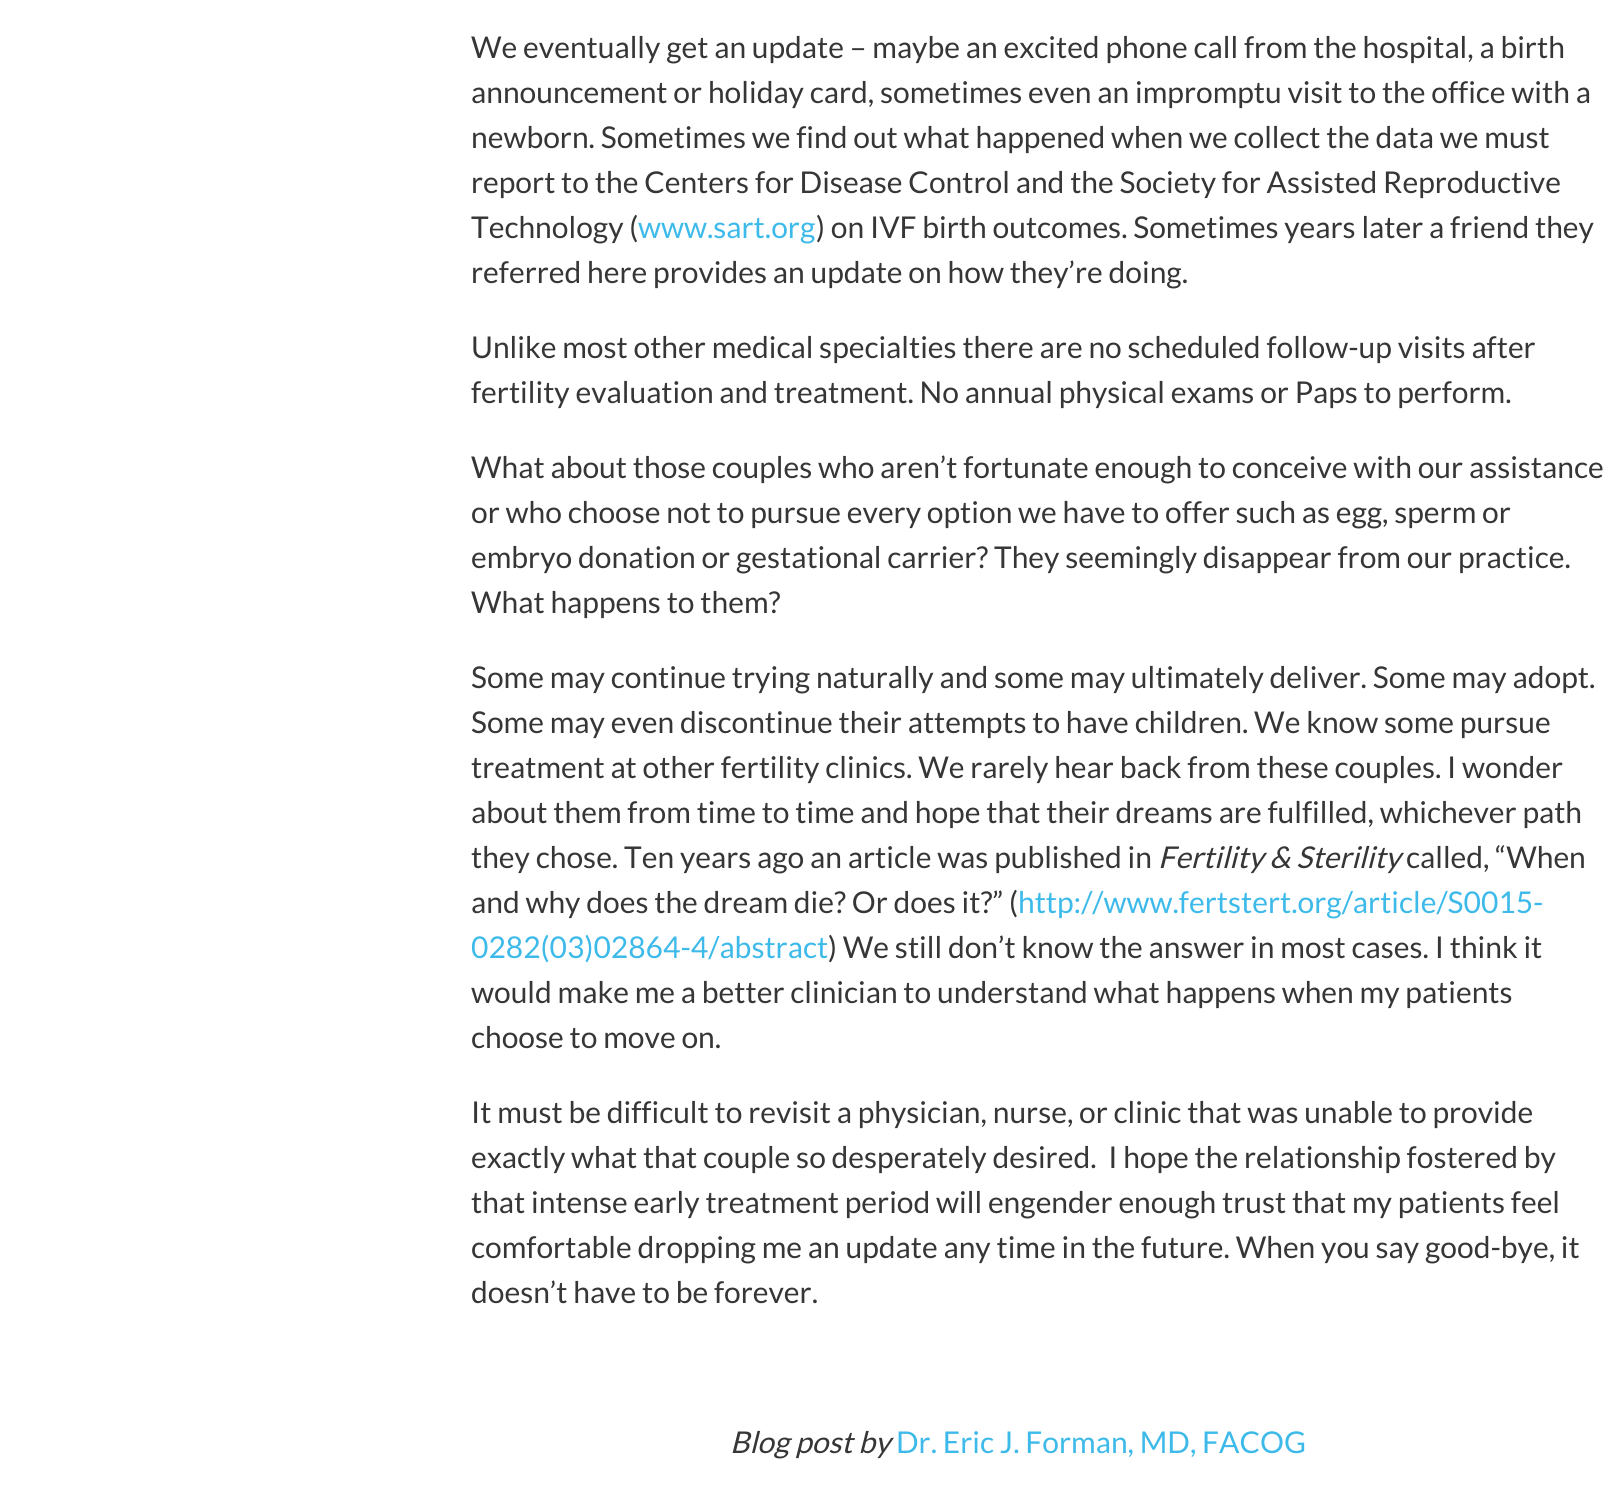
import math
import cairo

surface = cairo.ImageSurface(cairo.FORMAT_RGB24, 1611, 1490)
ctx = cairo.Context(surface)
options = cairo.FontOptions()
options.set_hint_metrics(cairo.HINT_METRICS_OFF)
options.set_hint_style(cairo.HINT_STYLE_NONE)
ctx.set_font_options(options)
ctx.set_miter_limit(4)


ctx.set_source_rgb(1, 1, 1)
ctx.paint()
ctx.select_font_face("Lato")
ctx.set_font_size(30)
ctx.set_source_rgb(0.212, 0.212, 0.212)
ctx.move_to(471, 58)
ctx.show_text("We eventually get an update – maybe an excited phone call from the hospital, a birth")
ctx.move_to(471, 103)
ctx.show_text("announcement or holiday card, sometimes even an impromptu visit to the office with a")
ctx.move_to(471, 148)
ctx.show_text("newborn. Sometimes we find out what happened when we collect the data we must")
ctx.move_to(471, 193)
ctx.show_text("report to the Centers for Disease Control and the Society for Assisted Reproductive")
ctx.move_to(471, 238)
ctx.show_text("Technology (")
ctx.set_source_rgb(0.239, 0.729, 0.914)
ctx.move_to(638, 238)
ctx.show_text("www.sart.org")
ctx.set_source_rgb(0.212, 0.212, 0.212)
ctx.move_to(816, 238)
ctx.show_text(") on IVF birth outcomes. Sometimes years later a friend they")
ctx.move_to(471, 283)
ctx.show_text("referred here provides an update on how they’re doing.")
ctx.move_to(471, 358)
ctx.show_text("Unlike most other medical specialties there are no scheduled follow-up visits after")
ctx.move_to(471, 403)
ctx.show_text("fertility evaluation and treatment. No annual physical exams or Paps to perform.")
ctx.move_to(471, 478)
ctx.show_text("What about those couples who aren’t fortunate enough to conceive with our assistance")
ctx.move_to(471, 523)
ctx.show_text("or who choose not to pursue every option we have to offer such as egg, sperm or")
ctx.move_to(471, 568)
ctx.show_text("embryo donation or gestational carrier? They seemingly disappear from our practice.")
ctx.move_to(471, 613)
ctx.show_text("What happens to them?")
ctx.move_to(471, 688)
ctx.show_text("Some may continue trying naturally and some may ultimately deliver. Some may adopt.")
ctx.move_to(471, 733)
ctx.show_text("Some may even discontinue their attempts to have children. We know some pursue")
ctx.move_to(471, 778)
ctx.show_text("treatment at other fertility clinics. We rarely hear back from these couples. I wonder")
ctx.move_to(471, 823)
ctx.show_text("about them from time to time and hope that their dreams are fulfilled, whichever path")
ctx.move_to(471, 868)
ctx.show_text("they chose. Ten years ago an article was published in")
ctx.select_font_face("Lato", cairo.FONT_SLANT_ITALIC)
ctx.move_to(1158, 868)
ctx.show_text("Fertility & Sterility")
ctx.select_font_face("Lato")
ctx.move_to(1406, 868)
ctx.show_text("called, “When")
ctx.move_to(471, 913)
ctx.show_text("and why does the dream die? Or does it?” (")
ctx.set_source_rgb(0.239, 0.729, 0.914)
ctx.move_to(1018, 913)
ctx.show_text("http://www.fertstert.org/article/S0015-")
ctx.move_to(471, 958)
ctx.show_text("0282(03)02864-4/abstract")
ctx.set_source_rgb(0.212, 0.212, 0.212)
ctx.move_to(828, 958)
ctx.show_text(") We still don’t know the answer in most cases. I think it")
ctx.move_to(471, 1003)
ctx.show_text("would make me a better clinician to understand what happens when my patients")
ctx.move_to(471, 1048)
ctx.show_text("choose to move on.")
ctx.move_to(471, 1123)
ctx.show_text("It must be difficult to revisit a physician, nurse, or clinic that was unable to provide")
ctx.move_to(471, 1168)
ctx.show_text("exactly what that couple so desperately desired.  I hope the relationship fostered by")
ctx.move_to(471, 1213)
ctx.show_text("that intense early treatment period will engender enough trust that my patients feel")
ctx.move_to(471, 1258)
ctx.show_text("comfortable dropping me an update any time in the future. When you say good-bye, it")
ctx.move_to(471, 1303)
ctx.show_text("doesn’t have to be forever.")
ctx.select_font_face("Lato", cairo.FONT_SLANT_ITALIC)
ctx.move_to(730, 1453)
ctx.show_text("Blog post by")
ctx.select_font_face("Lato")
ctx.set_source_rgb(0.239, 0.729, 0.914)
ctx.move_to(896, 1453)
ctx.show_text("Dr. Eric J. Forman, MD, FACOG")
surface.write_to_png("page.png")
